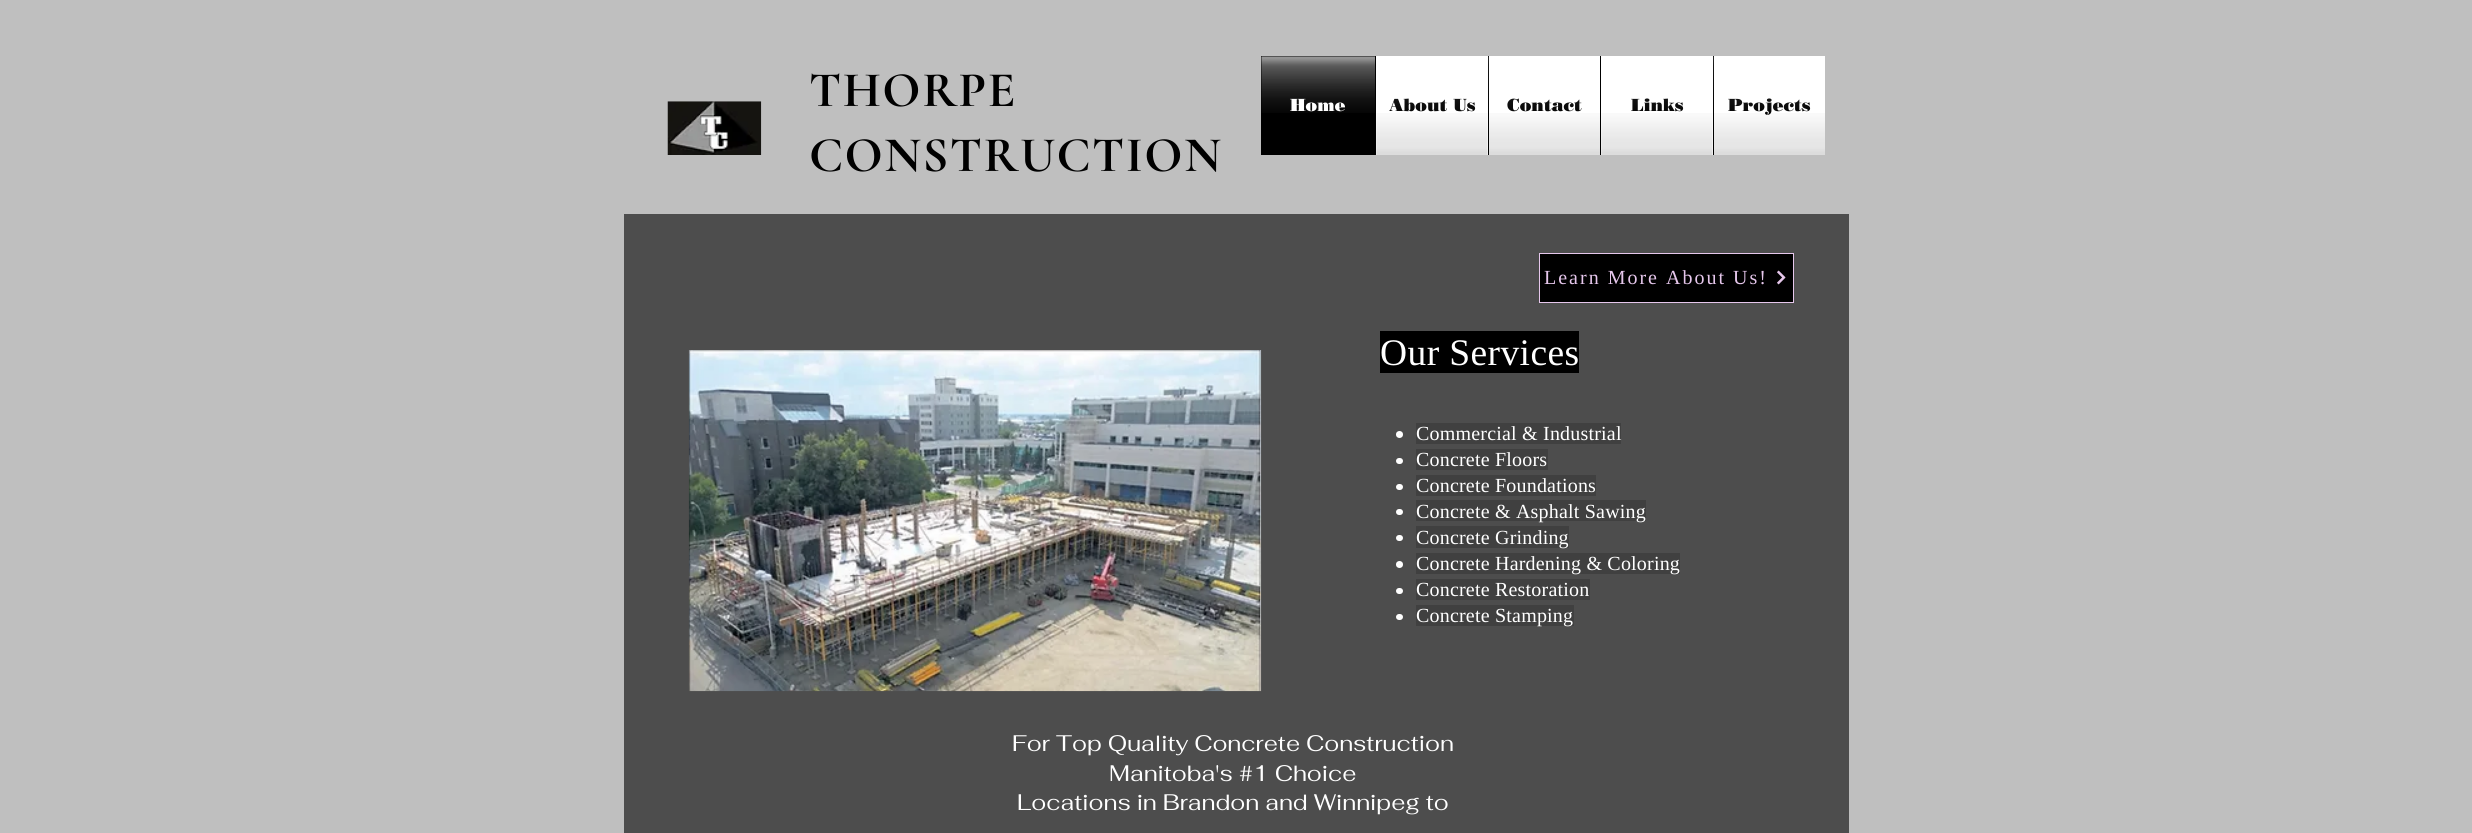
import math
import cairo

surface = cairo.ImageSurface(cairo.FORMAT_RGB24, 2472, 833)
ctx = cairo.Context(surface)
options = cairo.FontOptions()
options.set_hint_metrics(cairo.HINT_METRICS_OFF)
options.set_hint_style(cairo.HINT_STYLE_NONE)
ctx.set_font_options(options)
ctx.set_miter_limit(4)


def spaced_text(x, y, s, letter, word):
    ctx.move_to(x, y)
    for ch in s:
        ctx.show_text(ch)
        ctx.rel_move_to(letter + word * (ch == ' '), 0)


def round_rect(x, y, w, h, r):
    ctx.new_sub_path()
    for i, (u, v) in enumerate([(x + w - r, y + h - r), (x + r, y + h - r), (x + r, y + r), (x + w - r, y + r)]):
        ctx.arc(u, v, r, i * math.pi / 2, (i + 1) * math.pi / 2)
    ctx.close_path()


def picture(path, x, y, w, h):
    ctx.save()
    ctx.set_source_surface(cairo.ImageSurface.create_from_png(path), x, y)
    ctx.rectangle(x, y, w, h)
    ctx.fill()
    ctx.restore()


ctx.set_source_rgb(0.749, 0.749, 0.749)
ctx.paint()
picture("img1.png", 667, 101, 95, 54)
ctx.select_font_face("Cormorant Garamond", cairo.FONT_SLANT_NORMAL, cairo.FONT_WEIGHT_BOLD)
ctx.set_font_size(50)
ctx.set_source_rgb(0, 0, 0)
spaced_text(809, 106, "THORPE", 1.5, 0)
spaced_text(809, 171, "CONSTRUCTION", 1.5, 0)
ctx.rectangle(1261, 56, 115, 99)
ctx.fill()
ctx.select_font_face("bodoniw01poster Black")
ctx.set_font_size(17.5)
ctx.set_source_rgb(1, 1, 1)
ctx.move_to(1290, 111)
ctx.show_text("Home")
picture("img2.png", 1261, 56, 114, 57)
ctx.rectangle(1376, 56, 112, 99)
ctx.fill()
ctx.set_source_rgb(0, 0, 0)
ctx.move_to(1389, 111)
ctx.show_text("About Us")
picture("img3.png", 1389, 98, 86, 13)
picture("img4.png", 1376, 113, 112, 42)
ctx.set_source_rgb(1, 1, 1)
ctx.rectangle(1489, 56, 111, 99)
ctx.fill()
ctx.set_source_rgb(0, 0, 0)
ctx.rectangle(1488, 56, 1, 99)
ctx.fill()
ctx.move_to(1507, 111)
ctx.show_text("Contact")
picture("img5.png", 1488, 56, 92, 55)
picture("img6.png", 1489, 113, 111, 42)
ctx.set_source_rgb(1, 1, 1)
ctx.rectangle(1601, 56, 112, 99)
ctx.fill()
ctx.set_source_rgb(0, 0, 0)
ctx.rectangle(1600, 56, 1, 99)
ctx.fill()
ctx.move_to(1631, 111)
ctx.show_text("Links")
picture("img7.png", 1631, 98, 52, 13)
picture("img4.png", 1601, 113, 112, 42)
ctx.set_source_rgb(1, 1, 1)
ctx.rectangle(1714, 56, 111, 99)
ctx.fill()
ctx.set_source_rgb(0, 0, 0)
ctx.rectangle(1713, 56, 1, 99)
ctx.fill()
ctx.move_to(1728, 111)
ctx.show_text("Projects")
picture("img8.png", 1713, 56, 97, 57)
picture("img9.png", 1714, 113, 111, 42)
ctx.set_source_rgb(0.302, 0.302, 0.302)
ctx.rectangle(624, 214, 1225, 619)
ctx.fill()
ctx.set_source_rgb(0, 0, 0)
ctx.rectangle(1539.5, 253.5, 254, 49)
ctx.fill_preserve()
ctx.set_source_rgb(0.902, 0.78, 0.922)
ctx.set_line_width(1)
ctx.stroke()
ctx.select_font_face("Liberation Serif")
ctx.set_font_size(20)
spaced_text(1544, 284, "Learn More About Us!", 2, 0)
picture("img10.png", 1777, 270, 9, 15)
picture("img11.png", 688, 350, 574, 342)
ctx.set_source_rgb(0, 0, 0)
ctx.rectangle(1380, 331, 199, 42)
ctx.fill()
ctx.set_font_size(37.5)
ctx.set_source_rgb(1, 1, 1)
spaced_text(1380, 365, "Our Services", 0.4, 0)
ctx.new_path()
ctx.arc(1399.5, 434.5, 3.5, 0, 2 * math.pi)
ctx.fill()
ctx.set_source_rgb(0.251, 0.251, 0.251)
ctx.rectangle(1416, 423, 205, 21)
ctx.fill()
ctx.set_font_size(20)
ctx.set_source_rgb(1, 1, 1)
spaced_text(1416, 440, "Commercial & Industrial", 0.2, 0)
round_rect(1396, 458, 7, 6, 3)
ctx.fill()
ctx.set_source_rgb(0.251, 0.251, 0.251)
ctx.rectangle(1416, 449, 132, 21)
ctx.fill()
ctx.set_source_rgb(1, 1, 1)
spaced_text(1416, 466, "Concrete Floors", 0.2, 0)
round_rect(1396, 484, 7, 6, 3)
ctx.fill()
ctx.set_source_rgb(0.251, 0.251, 0.251)
ctx.rectangle(1416, 475, 180, 21)
ctx.fill()
ctx.set_source_rgb(1, 1, 1)
spaced_text(1416, 492, "Concrete Foundations", 0.2, 0)
round_rect(1396, 509, 7, 6, 3)
ctx.fill()
ctx.set_source_rgb(0.251, 0.251, 0.251)
ctx.rectangle(1416, 500, 230, 21)
ctx.fill()
ctx.set_source_rgb(1, 1, 1)
spaced_text(1416, 518, "Concrete & Asphalt Sawing", 0.2, 0)
round_rect(1396, 535, 7, 6, 3)
ctx.fill()
ctx.set_source_rgb(0.251, 0.251, 0.251)
ctx.rectangle(1416, 526, 153, 22)
ctx.fill()
ctx.set_source_rgb(1, 1, 1)
spaced_text(1416, 544, "Concrete Grinding", 0.2, 0)
ctx.new_path()
ctx.arc(1399.5, 564.5, 3.5, 0, 2 * math.pi)
ctx.fill()
ctx.set_source_rgb(0.251, 0.251, 0.251)
ctx.rectangle(1416, 553, 264, 21)
ctx.fill()
ctx.set_source_rgb(1, 1, 1)
spaced_text(1416, 570, "Concrete Hardening & Coloring", 0.2, 0)
round_rect(1396, 588, 7, 6, 3)
ctx.fill()
ctx.set_source_rgb(0.251, 0.251, 0.251)
ctx.rectangle(1416, 579, 174, 21)
ctx.fill()
ctx.set_source_rgb(1, 1, 1)
spaced_text(1416, 596, "Concrete Restoration", 0.2, 0)
round_rect(1396, 614, 7, 6, 3)
ctx.fill()
ctx.set_source_rgb(0.251, 0.251, 0.251)
ctx.rectangle(1416, 605, 158, 21)
ctx.fill()
ctx.set_source_rgb(1, 1, 1)
spaced_text(1416, 622, "Concrete Stamping", 0.2, 0)
ctx.select_font_face("Fahkwang")
ctx.set_font_size(22.5)
ctx.move_to(1012, 751)
ctx.show_text("For Top Quality Concrete Construction")
ctx.move_to(1109, 781)
ctx.show_text("Manitoba's #1 Choice")
ctx.move_to(1017, 810)
ctx.show_text("Locations in Brandon and Winnipeg to")
surface.write_to_png("page.png")
